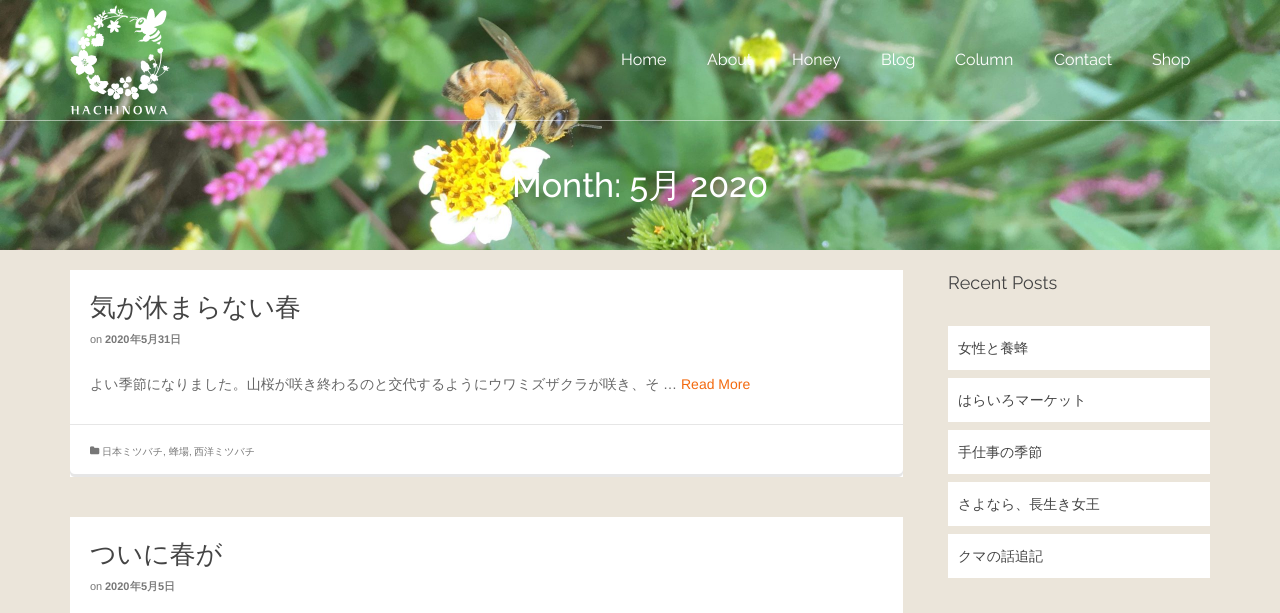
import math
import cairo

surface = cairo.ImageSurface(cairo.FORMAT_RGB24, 1280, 613)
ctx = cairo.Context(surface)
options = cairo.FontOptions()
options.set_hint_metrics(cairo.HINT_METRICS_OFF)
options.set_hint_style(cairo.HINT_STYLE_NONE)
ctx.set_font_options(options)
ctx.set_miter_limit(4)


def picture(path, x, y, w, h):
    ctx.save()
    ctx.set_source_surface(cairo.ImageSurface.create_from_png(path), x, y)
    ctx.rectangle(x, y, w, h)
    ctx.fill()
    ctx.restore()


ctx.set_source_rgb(0.918, 0.898, 0.855)
ctx.paint()
picture("img2.png", 0, 0, 1280, 250)
ctx.set_source_rgba(1, 1, 1, 0.5)
ctx.rectangle(0, 120, 1280, 1)
ctx.fill()
picture("img1.png", 70, 5, 100, 110)
ctx.select_font_face("Raleway")
ctx.set_font_size(16)
ctx.set_source_rgb(1, 1, 1)
ctx.move_to(621, 65)
ctx.show_text("Home")
ctx.move_to(707, 65)
ctx.show_text("About")
ctx.move_to(792, 65)
ctx.show_text("Honey")
ctx.move_to(881, 65)
ctx.show_text("Blog")
ctx.move_to(955, 65)
ctx.show_text("Column")
ctx.move_to(1054, 65)
ctx.show_text("Contact")
ctx.move_to(1152, 65)
ctx.show_text("Shop")
ctx.select_font_face("Raleway Medium")
ctx.set_font_size(34)
ctx.move_to(512, 197)
ctx.show_text("Month: 5")
ctx.select_font_face("WenQuanYi Zen Hei Medium")
ctx.move_to(648, 197)
ctx.show_text("月")
ctx.select_font_face("Raleway Medium")
ctx.move_to(690, 197)
ctx.show_text("2020")
ctx.rectangle(70, 270, 833, 207)
ctx.fill()
ctx.select_font_face("WenQuanYi Zen Hei Medium")
ctx.set_font_size(26)
ctx.set_source_rgb(0.267, 0.267, 0.267)
ctx.move_to(90, 316)
ctx.show_text("気が休まらない春")
ctx.select_font_face("Liberation Sans")
ctx.set_font_size(11)
ctx.set_source_rgb(0.467, 0.467, 0.467)
ctx.move_to(90, 343)
ctx.show_text("on")
ctx.select_font_face("Liberation Sans", cairo.FONT_SLANT_NORMAL, cairo.FONT_WEIGHT_BOLD)
ctx.move_to(105, 343)
ctx.show_text("2020")
ctx.select_font_face("WenQuanYi Zen Hei", cairo.FONT_SLANT_NORMAL, cairo.FONT_WEIGHT_BOLD)
ctx.move_to(130, 343)
ctx.show_text("年")
ctx.select_font_face("Liberation Sans", cairo.FONT_SLANT_NORMAL, cairo.FONT_WEIGHT_BOLD)
ctx.move_to(141, 343)
ctx.show_text("5")
ctx.select_font_face("WenQuanYi Zen Hei", cairo.FONT_SLANT_NORMAL, cairo.FONT_WEIGHT_BOLD)
ctx.move_to(147, 343)
ctx.show_text("月")
ctx.select_font_face("Liberation Sans", cairo.FONT_SLANT_NORMAL, cairo.FONT_WEIGHT_BOLD)
ctx.move_to(158, 343)
ctx.show_text("31")
ctx.select_font_face("WenQuanYi Zen Hei", cairo.FONT_SLANT_NORMAL, cairo.FONT_WEIGHT_BOLD)
ctx.move_to(170, 343)
ctx.show_text("日")
ctx.select_font_face("WenQuanYi Zen Hei Medium")
ctx.set_font_size(14)
ctx.set_source_rgb(0.4, 0.4, 0.4)
ctx.move_to(90, 389)
ctx.show_text("よい季節になりました。山桜が咲き終わるのと交代するようにウワミズザクラが咲き、そ")
ctx.select_font_face("Liberation Sans")
ctx.move_to(663, 389)
ctx.show_text("…")
ctx.set_source_rgb(0.953, 0.412, 0.055)
ctx.move_to(681, 389)
ctx.show_text("Read More")
ctx.set_source_rgb(0.902, 0.902, 0.902)
ctx.new_path()
ctx.move_to(70, 469)
ctx.line_to(70, 472)
ctx.curve_to(70, 475, 72, 477, 75, 477)
ctx.line_to(898, 477)
ctx.curve_to(901, 477, 903, 475, 903, 472)
ctx.line_to(903, 469)
ctx.curve_to(903, 472, 901, 474, 898, 474)
ctx.line_to(75, 474)
ctx.curve_to(72, 474, 70, 472, 70, 469)
ctx.close_path()
ctx.fill()
ctx.rectangle(70, 424, 833, 1)
ctx.fill()
picture("img3.png", 90, 446, 10, 9)
ctx.select_font_face("WenQuanYi Zen Hei Medium")
ctx.set_font_size(10)
ctx.set_source_rgb(0.467, 0.467, 0.467)
ctx.move_to(102, 455)
ctx.show_text("日本ミツバチ")
ctx.select_font_face("Liberation Sans")
ctx.move_to(163, 455)
ctx.show_text(",")
ctx.select_font_face("WenQuanYi Zen Hei Medium")
ctx.move_to(169, 455)
ctx.show_text("蜂場")
ctx.select_font_face("Liberation Sans")
ctx.move_to(189, 455)
ctx.show_text(",")
ctx.select_font_face("WenQuanYi Zen Hei Medium")
ctx.move_to(194, 455)
ctx.show_text("西洋ミツバチ")
ctx.set_source_rgb(1, 1, 1)
ctx.rectangle(70, 517, 833, 96)
ctx.fill()
ctx.set_font_size(26)
ctx.set_source_rgb(0.267, 0.267, 0.267)
ctx.move_to(90, 563)
ctx.show_text("ついに春が")
ctx.select_font_face("Liberation Sans")
ctx.set_font_size(11)
ctx.set_source_rgb(0.467, 0.467, 0.467)
ctx.move_to(90, 590)
ctx.show_text("on")
ctx.select_font_face("Liberation Sans", cairo.FONT_SLANT_NORMAL, cairo.FONT_WEIGHT_BOLD)
ctx.move_to(105, 590)
ctx.show_text("2020")
ctx.select_font_face("WenQuanYi Zen Hei", cairo.FONT_SLANT_NORMAL, cairo.FONT_WEIGHT_BOLD)
ctx.move_to(130, 590)
ctx.show_text("年")
ctx.select_font_face("Liberation Sans", cairo.FONT_SLANT_NORMAL, cairo.FONT_WEIGHT_BOLD)
ctx.move_to(141, 590)
ctx.show_text("5")
ctx.select_font_face("WenQuanYi Zen Hei", cairo.FONT_SLANT_NORMAL, cairo.FONT_WEIGHT_BOLD)
ctx.move_to(147, 590)
ctx.show_text("月")
ctx.select_font_face("Liberation Sans", cairo.FONT_SLANT_NORMAL, cairo.FONT_WEIGHT_BOLD)
ctx.move_to(158, 590)
ctx.show_text("5")
ctx.select_font_face("WenQuanYi Zen Hei", cairo.FONT_SLANT_NORMAL, cairo.FONT_WEIGHT_BOLD)
ctx.move_to(164, 590)
ctx.show_text("日")
ctx.select_font_face("Raleway")
ctx.set_font_size(18)
ctx.set_source_rgb(0.267, 0.267, 0.267)
ctx.move_to(948, 289)
ctx.show_text("Recent Posts")
ctx.set_source_rgb(1, 1, 1)
ctx.rectangle(948, 326, 262, 44)
ctx.fill()
ctx.select_font_face("WenQuanYi Zen Hei Medium")
ctx.set_font_size(14)
ctx.set_source_rgb(0.267, 0.267, 0.267)
ctx.move_to(958, 353)
ctx.show_text("女性と養蜂")
ctx.set_source_rgb(1, 1, 1)
ctx.rectangle(948, 378, 262, 44)
ctx.fill()
ctx.set_source_rgb(0.267, 0.267, 0.267)
ctx.move_to(958, 405)
ctx.show_text("はらいろマーケット")
ctx.set_source_rgb(1, 1, 1)
ctx.rectangle(948, 430, 262, 44)
ctx.fill()
ctx.set_source_rgb(0.267, 0.267, 0.267)
ctx.move_to(958, 457)
ctx.show_text("手仕事の季節")
ctx.set_source_rgb(1, 1, 1)
ctx.rectangle(948, 482, 262, 44)
ctx.fill()
ctx.set_source_rgb(0.267, 0.267, 0.267)
ctx.move_to(958, 509)
ctx.show_text("さよなら、長生き女王")
ctx.set_source_rgb(1, 1, 1)
ctx.rectangle(948, 534, 262, 44)
ctx.fill()
ctx.set_source_rgb(0.267, 0.267, 0.267)
ctx.move_to(958, 561)
ctx.show_text("クマの話追記")
surface.write_to_png("page.png")
